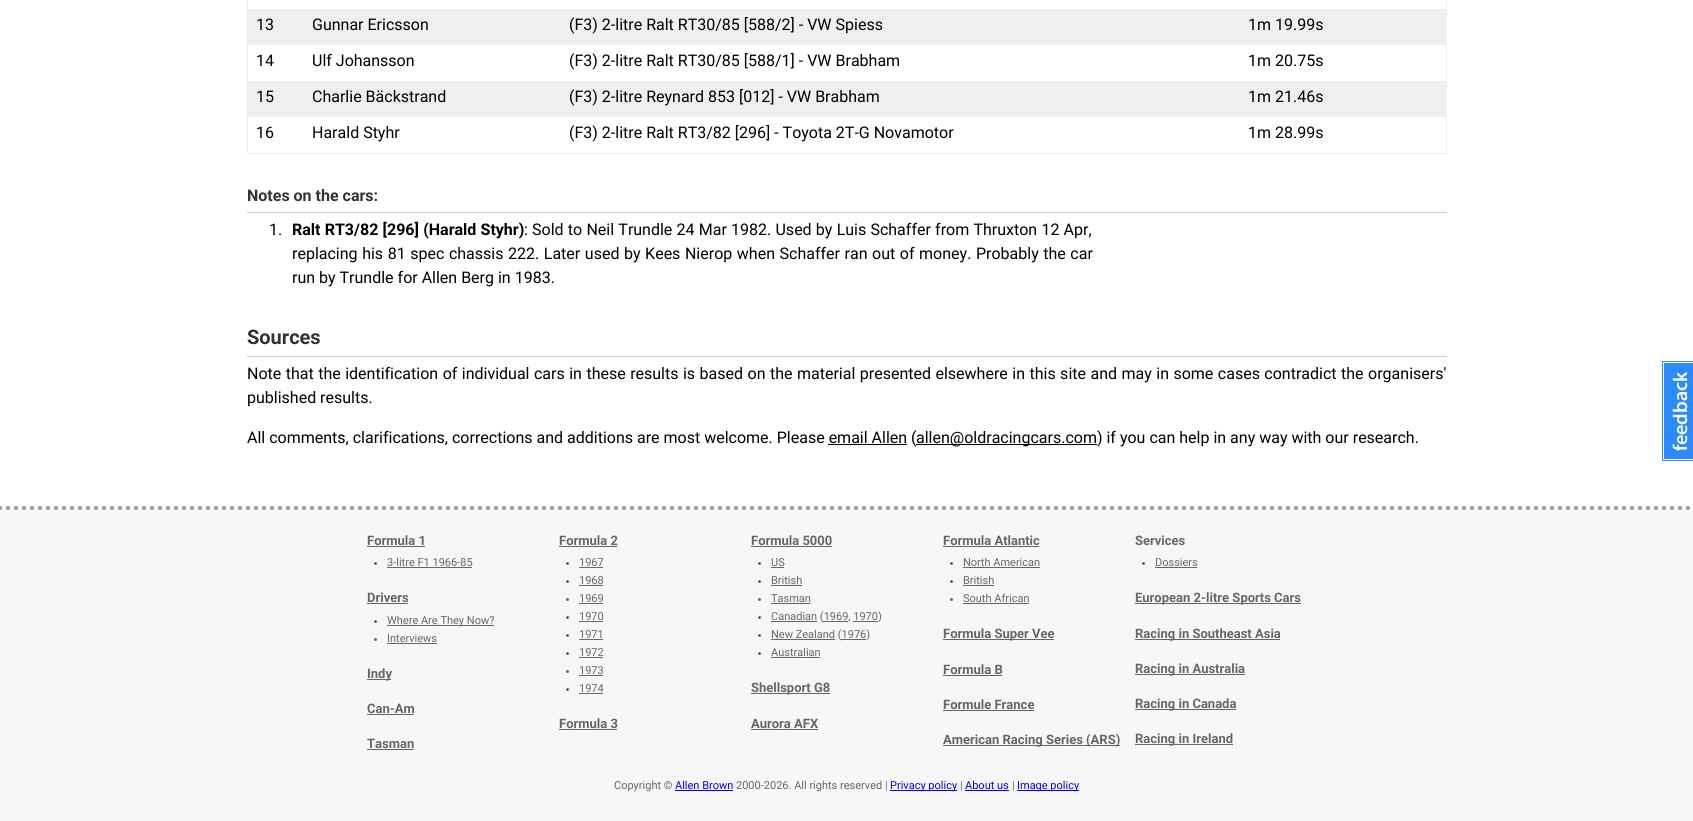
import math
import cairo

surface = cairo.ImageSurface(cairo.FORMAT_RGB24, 1693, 821)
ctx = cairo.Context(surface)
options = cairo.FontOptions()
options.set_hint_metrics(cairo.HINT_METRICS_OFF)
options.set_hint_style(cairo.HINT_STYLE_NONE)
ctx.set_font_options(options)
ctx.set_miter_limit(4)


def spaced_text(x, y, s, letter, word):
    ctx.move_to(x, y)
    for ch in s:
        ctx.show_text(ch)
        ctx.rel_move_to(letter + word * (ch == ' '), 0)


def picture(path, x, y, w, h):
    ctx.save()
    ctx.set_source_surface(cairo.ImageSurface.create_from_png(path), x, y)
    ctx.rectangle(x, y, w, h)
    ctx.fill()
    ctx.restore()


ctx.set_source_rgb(1, 1, 1)
ctx.paint()
ctx.set_source_rgb(0.937, 0.937, 0.937)
ctx.rectangle(1446, 0, 1, 154)
ctx.fill()
ctx.rectangle(247, 153, 1200, 1)
ctx.fill()
ctx.rectangle(247, 0, 1, 154)
ctx.fill()
ctx.rectangle(248, 9, 1198, 36)
ctx.fill()
ctx.select_font_face("Roboto")
ctx.set_font_size(16)
ctx.set_source_rgb(0, 0, 0)
ctx.move_to(256, 30)
ctx.show_text("13")
ctx.move_to(312, 30)
ctx.show_text("Gunnar Ericsson")
ctx.move_to(569, 30)
ctx.show_text("(F3) 2-litre Ralt RT30/85 [588/2] - VW Spiess")
ctx.move_to(1248, 30)
ctx.show_text("1m 19.99s")
ctx.move_to(256, 66)
ctx.show_text("14")
ctx.move_to(312, 66)
ctx.show_text("Ulf Johansson")
ctx.move_to(569, 66)
ctx.show_text("(F3) 2-litre Ralt RT30/85 [588/1] - VW Brabham")
ctx.move_to(1248, 66)
ctx.show_text("1m 20.75s")
ctx.set_source_rgb(0.937, 0.937, 0.937)
ctx.rectangle(248, 81, 1198, 36)
ctx.fill()
ctx.set_source_rgb(0, 0, 0)
ctx.move_to(256, 102)
ctx.show_text("15")
ctx.move_to(312, 102)
ctx.show_text("Charlie Bäckstrand")
ctx.move_to(569, 102)
ctx.show_text("(F3) 2-litre Reynard 853 [012] - VW Brabham")
ctx.move_to(1248, 102)
ctx.show_text("1m 21.46s")
ctx.move_to(256, 138)
ctx.show_text("16")
ctx.move_to(312, 138)
ctx.show_text("Harald Styhr")
ctx.move_to(569, 138)
ctx.show_text("(F3) 2-litre Ralt RT3/82 [296] - Toyota 2T-G Novamotor")
ctx.move_to(1248, 138)
ctx.show_text("1m 28.99s")
ctx.set_source_rgb(0.8, 0.8, 0.8)
ctx.rectangle(247, 212, 1200, 1)
ctx.fill()
ctx.select_font_face("Roboto", cairo.FONT_SLANT_NORMAL, cairo.FONT_WEIGHT_BOLD)
ctx.set_source_rgb(0.2, 0.2, 0.2)
ctx.move_to(247, 201)
ctx.show_text("Notes on the cars:")
ctx.select_font_face("Roboto")
ctx.set_source_rgb(0, 0, 0)
ctx.move_to(269, 235)
ctx.show_text("1.")
ctx.select_font_face("Roboto", cairo.FONT_SLANT_NORMAL, cairo.FONT_WEIGHT_BOLD)
spaced_text(292, 235, "Ralt RT3/82 [296] (Harald Styhr)", 0, 0.25)
ctx.select_font_face("Roboto")
spaced_text(524, 235, ": Sold to Neil Trundle 24 Mar 1982. Used by Luis Schaffer from Thruxton 12 Apr,", 0, 0.25)
spaced_text(292, 259, "replacing his 81 spec chassis 222. Later used by Kees Nierop when Schaffer ran out of money. Probably the car", 0, 0.6)
ctx.move_to(292, 283)
ctx.show_text("run by Trundle for Allen Berg in 1983.")
ctx.set_source_rgb(0.8, 0.8, 0.8)
ctx.rectangle(247, 356, 1200, 1)
ctx.fill()
ctx.select_font_face("Roboto", cairo.FONT_SLANT_NORMAL, cairo.FONT_WEIGHT_BOLD)
ctx.set_font_size(20)
ctx.set_source_rgb(0.2, 0.2, 0.2)
ctx.move_to(247, 344)
ctx.show_text("Sources")
ctx.select_font_face("Roboto")
ctx.set_font_size(16)
ctx.set_source_rgb(0, 0, 0)
spaced_text(247, 379, "Note that the identification of individual cars in these results is based on the material presented elsewhere in this site and may in some cases contradict the organisers'", 0, 0.5)
ctx.move_to(247, 403)
ctx.show_text("published results.")
ctx.move_to(247, 443)
ctx.show_text("All comments, clarifications, corrections and additions are most welcome. Please email Allen (")
ctx.rectangle(916, 444, 181, 1)
ctx.fill()
ctx.move_to(916, 443)
ctx.show_text("allen@oldracingcars.com) if you can help in any way with our research.")
ctx.rectangle(828, 444, 79, 1)
ctx.fill()
ctx.set_source_rgb(0.173, 0.545, 0.988)
ctx.rectangle(1662, 361, 31, 100)
ctx.fill()
picture("img1.png", 1663, 362, 30, 98)
ctx.set_source_rgb(0.965, 0.965, 0.965)
ctx.rectangle(0, 506, 1693, 315)
ctx.fill()
ctx.new_path()
ctx.move_to(0, 508)
ctx.line_to(1693, 508)
ctx.set_source_rgb(0.6, 0.6, 0.6)
ctx.set_line_width(4)
ctx.set_line_cap(cairo.LINE_CAP_ROUND)
ctx.set_dash([0, 8])
ctx.stroke()
ctx.select_font_face("Roboto", cairo.FONT_SLANT_NORMAL, cairo.FONT_WEIGHT_BOLD)
ctx.set_font_size(13)
ctx.set_source_rgb(0.4, 0.4, 0.4)
ctx.move_to(367, 545)
ctx.show_text("Formula 1")
ctx.rectangle(367, 546, 58, 1)
ctx.fill()
ctx.arc(375.5, 563.5, 1.5, 0, 2 * math.pi)
ctx.fill()
ctx.select_font_face("Roboto")
ctx.set_font_size(11)
ctx.move_to(387, 566)
ctx.show_text("3-litre F1 1966-85")
ctx.rectangle(387, 567, 85, 1)
ctx.fill()
ctx.select_font_face("Roboto", cairo.FONT_SLANT_NORMAL, cairo.FONT_WEIGHT_BOLD)
ctx.set_font_size(13)
ctx.move_to(367, 602)
ctx.show_text("Drivers")
ctx.rectangle(367, 603, 41, 1)
ctx.fill()
ctx.arc(375.5, 621.5, 1.5, 0, 2 * math.pi)
ctx.fill()
ctx.rectangle(387, 625, 107, 1)
ctx.fill()
ctx.select_font_face("Roboto")
ctx.set_font_size(11)
ctx.move_to(387, 624)
ctx.show_text("Where Are They Now?")
ctx.new_path()
ctx.arc(375.5, 639.5, 1.5, 0, 2 * math.pi)
ctx.fill()
ctx.move_to(387, 642)
ctx.show_text("Interviews")
ctx.rectangle(387, 643, 50, 1)
ctx.fill()
ctx.rectangle(367, 679, 24, 1)
ctx.fill()
ctx.select_font_face("Roboto", cairo.FONT_SLANT_NORMAL, cairo.FONT_WEIGHT_BOLD)
ctx.set_font_size(13)
ctx.move_to(367, 678)
ctx.show_text("Indy")
ctx.move_to(367, 713)
ctx.show_text("Can-Am")
ctx.rectangle(367, 714, 47, 1)
ctx.fill()
ctx.move_to(367, 748)
ctx.show_text("Tasman")
ctx.rectangle(367, 749, 47, 1)
ctx.fill()
ctx.move_to(559, 545)
ctx.show_text("Formula 2")
ctx.rectangle(559, 546, 58, 1)
ctx.fill()
ctx.arc(567.5, 563.5, 1.5, 0, 2 * math.pi)
ctx.fill()
ctx.select_font_face("Roboto")
ctx.set_font_size(11)
ctx.move_to(579, 566)
ctx.show_text("1967")
ctx.rectangle(579, 567, 24, 1)
ctx.fill()
ctx.arc(567.5, 581.5, 1.5, 0, 2 * math.pi)
ctx.fill()
ctx.move_to(579, 584)
ctx.show_text("1968")
ctx.rectangle(579, 585, 24, 1)
ctx.fill()
ctx.arc(567.5, 599.5, 1.5, 0, 2 * math.pi)
ctx.fill()
ctx.move_to(579, 602)
ctx.show_text("1969")
ctx.rectangle(579, 603, 24, 1)
ctx.fill()
ctx.arc(567.5, 617.5, 1.5, 0, 2 * math.pi)
ctx.fill()
ctx.move_to(579, 620)
ctx.show_text("1970")
ctx.rectangle(579, 621, 24, 1)
ctx.fill()
ctx.arc(567.5, 635.5, 1.5, 0, 2 * math.pi)
ctx.fill()
ctx.move_to(579, 638)
ctx.show_text("1971")
ctx.rectangle(579, 639, 24, 1)
ctx.fill()
ctx.arc(567.5, 653.5, 1.5, 0, 2 * math.pi)
ctx.fill()
ctx.move_to(579, 656)
ctx.show_text("1972")
ctx.rectangle(579, 657, 24, 1)
ctx.fill()
ctx.arc(567.5, 671.5, 1.5, 0, 2 * math.pi)
ctx.fill()
ctx.move_to(579, 674)
ctx.show_text("1973")
ctx.rectangle(579, 675, 24, 1)
ctx.fill()
ctx.arc(567.5, 689.5, 1.5, 0, 2 * math.pi)
ctx.fill()
ctx.move_to(579, 692)
ctx.show_text("1974")
ctx.rectangle(579, 693, 24, 1)
ctx.fill()
ctx.select_font_face("Roboto", cairo.FONT_SLANT_NORMAL, cairo.FONT_WEIGHT_BOLD)
ctx.set_font_size(13)
ctx.move_to(559, 728)
ctx.show_text("Formula 3")
ctx.rectangle(559, 729, 58, 1)
ctx.fill()
ctx.move_to(751, 545)
ctx.show_text("Formula 5000")
ctx.rectangle(751, 546, 81, 1)
ctx.fill()
ctx.arc(759.5, 563.5, 1.5, 0, 2 * math.pi)
ctx.fill()
ctx.select_font_face("Roboto")
ctx.set_font_size(11)
ctx.move_to(771, 566)
ctx.show_text("US")
ctx.rectangle(771, 567, 13, 1)
ctx.fill()
ctx.arc(759.5, 581.5, 1.5, 0, 2 * math.pi)
ctx.fill()
ctx.move_to(771, 584)
ctx.show_text("British")
ctx.rectangle(771, 585, 31, 1)
ctx.fill()
ctx.arc(759.5, 599.5, 1.5, 0, 2 * math.pi)
ctx.fill()
ctx.move_to(771, 602)
ctx.show_text("Tasman")
ctx.rectangle(771, 603, 39, 1)
ctx.fill()
ctx.arc(759.5, 617.5, 1.5, 0, 2 * math.pi)
ctx.fill()
ctx.rectangle(771, 621, 46, 1)
ctx.fill()
ctx.move_to(771, 620)
ctx.show_text("Canadian (1969, 1970")
ctx.rectangle(853, 621, 25, 1)
ctx.fill()
ctx.move_to(878, 620)
ctx.show_text(")")
ctx.rectangle(823, 621, 25, 1)
ctx.fill()
ctx.arc(759.5, 635.5, 1.5, 0, 2 * math.pi)
ctx.fill()
ctx.rectangle(771, 639, 64, 1)
ctx.fill()
ctx.move_to(771, 638)
ctx.show_text("New Zealand (1976)")
ctx.rectangle(841, 639, 25, 1)
ctx.fill()
ctx.arc(759.5, 653.5, 1.5, 0, 2 * math.pi)
ctx.fill()
ctx.move_to(771, 656)
ctx.show_text("Australian")
ctx.rectangle(771, 657, 49, 1)
ctx.fill()
ctx.rectangle(751, 693, 79, 1)
ctx.fill()
ctx.select_font_face("Roboto", cairo.FONT_SLANT_NORMAL, cairo.FONT_WEIGHT_BOLD)
ctx.set_font_size(13)
ctx.move_to(751, 692)
ctx.show_text("Shellsport G8")
ctx.move_to(751, 728)
ctx.show_text("Aurora AFX")
ctx.rectangle(751, 729, 67, 1)
ctx.fill()
ctx.move_to(943, 545)
ctx.show_text("Formula Atlantic")
ctx.rectangle(943, 546, 96, 1)
ctx.fill()
ctx.arc(951.5, 563.5, 1.5, 0, 2 * math.pi)
ctx.fill()
ctx.select_font_face("Roboto")
ctx.set_font_size(11)
ctx.move_to(963, 566)
ctx.show_text("North American")
ctx.rectangle(963, 567, 77, 1)
ctx.fill()
ctx.arc(951.5, 581.5, 1.5, 0, 2 * math.pi)
ctx.fill()
ctx.move_to(963, 584)
ctx.show_text("British")
ctx.rectangle(963, 585, 31, 1)
ctx.fill()
ctx.arc(951.5, 599.5, 1.5, 0, 2 * math.pi)
ctx.fill()
ctx.move_to(963, 602)
ctx.show_text("South African")
ctx.rectangle(963, 603, 66, 1)
ctx.fill()
ctx.rectangle(943, 639, 111, 1)
ctx.fill()
ctx.select_font_face("Roboto", cairo.FONT_SLANT_NORMAL, cairo.FONT_WEIGHT_BOLD)
ctx.set_font_size(13)
ctx.move_to(943, 638)
ctx.show_text("Formula Super Vee")
ctx.move_to(943, 674)
ctx.show_text("Formula B")
ctx.rectangle(943, 675, 59, 1)
ctx.fill()
ctx.move_to(943, 709)
ctx.show_text("Formule France")
ctx.rectangle(943, 710, 91, 1)
ctx.fill()
ctx.rectangle(943, 745, 177, 1)
ctx.fill()
ctx.move_to(943, 744)
ctx.show_text("American Racing Series (ARS)")
ctx.move_to(1135, 545)
ctx.show_text("Services")
ctx.new_path()
ctx.arc(1143.5, 563.5, 1.5, 0, 2 * math.pi)
ctx.fill()
ctx.select_font_face("Roboto")
ctx.set_font_size(11)
ctx.move_to(1155, 566)
ctx.show_text("Dossiers")
ctx.rectangle(1155, 567, 42, 1)
ctx.fill()
ctx.rectangle(1135, 603, 166, 1)
ctx.fill()
ctx.select_font_face("Roboto", cairo.FONT_SLANT_NORMAL, cairo.FONT_WEIGHT_BOLD)
ctx.set_font_size(13)
ctx.move_to(1135, 602)
ctx.show_text("European 2-litre Sports Cars")
ctx.rectangle(1135, 639, 145, 1)
ctx.fill()
ctx.move_to(1135, 638)
ctx.show_text("Racing in Southeast Asia")
ctx.rectangle(1135, 674, 110, 1)
ctx.fill()
ctx.move_to(1135, 673)
ctx.show_text("Racing in Australia")
ctx.rectangle(1135, 709, 101, 1)
ctx.fill()
ctx.move_to(1135, 708)
ctx.show_text("Racing in Canada")
ctx.rectangle(1135, 744, 98, 1)
ctx.fill()
ctx.move_to(1135, 743)
ctx.show_text("Racing in Ireland")
ctx.select_font_face("Roboto")
ctx.set_font_size(11)
ctx.move_to(614, 789)
ctx.show_text("Copyright ©")
ctx.set_source_rgb(0, 0, 0.933)
ctx.move_to(675, 789)
ctx.show_text("Allen Brown")
ctx.rectangle(675, 790, 58, 1)
ctx.fill()
ctx.set_source_rgb(0.4, 0.4, 0.4)
ctx.move_to(736, 789)
ctx.show_text("2000-2026. All rights reserved |")
ctx.set_source_rgb(0, 0, 0.933)
ctx.rectangle(890, 790, 67, 1)
ctx.fill()
ctx.move_to(890, 789)
ctx.show_text("Privacy policy")
ctx.set_source_rgb(0.4, 0.4, 0.4)
ctx.move_to(960, 789)
ctx.show_text("|")
ctx.set_source_rgb(0, 0, 0.933)
ctx.move_to(965, 789)
ctx.show_text("About us")
ctx.rectangle(965, 790, 44, 1)
ctx.fill()
ctx.set_source_rgb(0.4, 0.4, 0.4)
ctx.move_to(1012, 789)
ctx.show_text("|")
ctx.set_source_rgb(0, 0, 0.933)
ctx.rectangle(1017, 790, 62, 1)
ctx.fill()
ctx.move_to(1017, 789)
ctx.show_text("Image policy")
surface.write_to_png("page.png")
